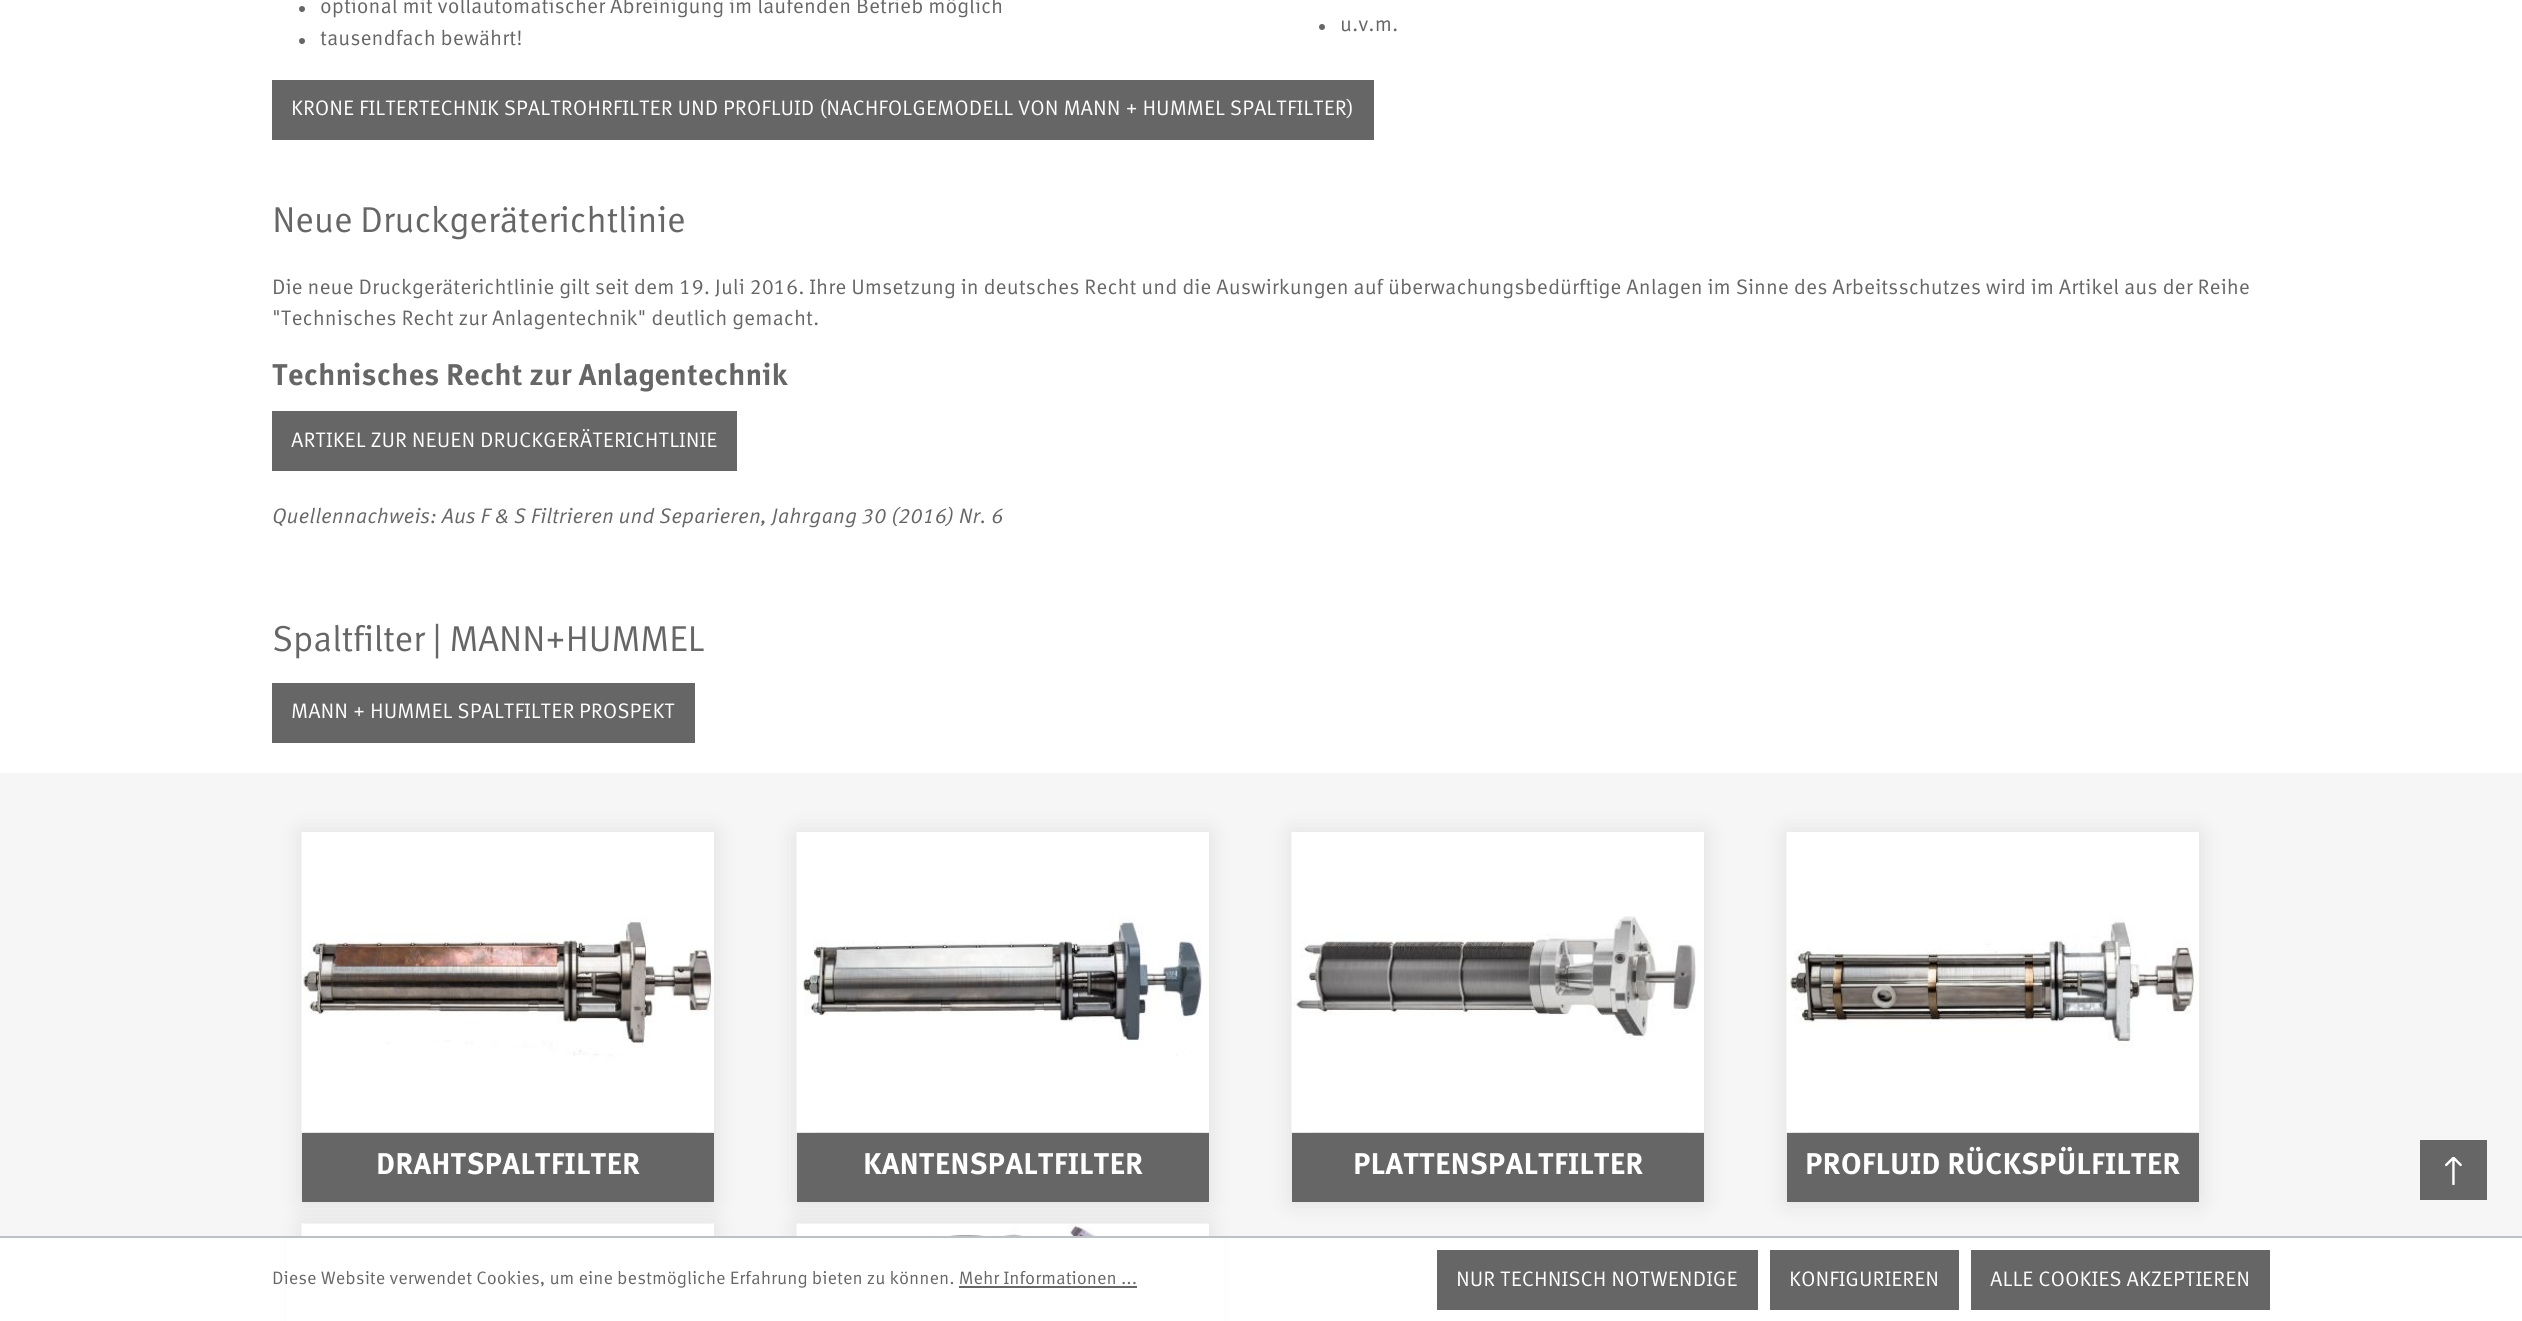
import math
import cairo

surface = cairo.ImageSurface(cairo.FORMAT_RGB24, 2522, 1321)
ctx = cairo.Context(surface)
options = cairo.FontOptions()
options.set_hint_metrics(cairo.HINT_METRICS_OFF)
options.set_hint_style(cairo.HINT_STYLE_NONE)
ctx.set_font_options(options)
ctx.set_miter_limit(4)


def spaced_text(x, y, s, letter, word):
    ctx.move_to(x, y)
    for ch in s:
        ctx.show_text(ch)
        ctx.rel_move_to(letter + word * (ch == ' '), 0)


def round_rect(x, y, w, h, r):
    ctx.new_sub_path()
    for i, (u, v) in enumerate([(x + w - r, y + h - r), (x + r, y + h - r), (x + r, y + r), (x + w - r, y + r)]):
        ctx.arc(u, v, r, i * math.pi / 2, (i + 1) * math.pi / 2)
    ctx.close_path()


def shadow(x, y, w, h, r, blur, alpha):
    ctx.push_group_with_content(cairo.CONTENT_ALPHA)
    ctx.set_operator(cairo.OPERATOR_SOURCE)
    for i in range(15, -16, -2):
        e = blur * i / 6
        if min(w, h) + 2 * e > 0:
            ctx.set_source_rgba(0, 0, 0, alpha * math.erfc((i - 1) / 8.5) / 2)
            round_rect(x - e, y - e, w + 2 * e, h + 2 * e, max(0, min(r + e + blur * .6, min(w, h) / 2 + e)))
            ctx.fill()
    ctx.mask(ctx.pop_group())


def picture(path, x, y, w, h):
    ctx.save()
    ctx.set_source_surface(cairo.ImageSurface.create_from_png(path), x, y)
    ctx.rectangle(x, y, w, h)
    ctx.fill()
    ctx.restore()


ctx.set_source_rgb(1, 1, 1)
ctx.paint()
ctx.set_source_rgb(0.4, 0.4, 0.4)
ctx.arc(302, 9, 3, 0, 2 * math.pi)
ctx.fill()
ctx.select_font_face("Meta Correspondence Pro")
ctx.set_font_size(21)
ctx.move_to(320, 13)
ctx.show_text("optional mit vollautomatischer Abreinigung im laufenden Betrieb möglich")
ctx.new_path()
ctx.arc(302, 41, 3, 0, 2 * math.pi)
ctx.fill()
ctx.move_to(320, 45)
ctx.show_text("tausendfach bewährt!")
ctx.new_path()
ctx.arc(1322, 27, 3, 0, 2 * math.pi)
ctx.fill()
ctx.move_to(1340, 31)
ctx.show_text("u.v.m.")
ctx.rectangle(272, 80, 1102, 60)
ctx.fill()
ctx.set_source_rgb(1, 1, 1)
ctx.move_to(291, 115)
ctx.show_text("KRONE FILTERTECHNIK SPALTROHRFILTER UND PROFLUID (NACHFOLGEMODELL VON MANN + HUMMEL SPALTFILTER)")
ctx.set_font_size(36)
ctx.set_source_rgb(0.4, 0.4, 0.4)
spaced_text(272, 232, "Neue Druckgeräterichtlinie", -0.5, 0)
ctx.set_font_size(21)
ctx.move_to(272, 294)
ctx.show_text("Die neue Druckgeräterichtlinie gilt seit dem 19. Juli 2016. Ihre Umsetzung in deutsches Recht und die Auswirkungen auf überwachungsbedürftige Anlagen im Sinne des Arbeitsschutzes wird im Artikel aus der Reihe")
ctx.move_to(272, 325)
ctx.show_text("\"Technisches Recht zur Anlagentechnik\" deutlich gemacht.")
ctx.select_font_face("Meta Correspondence Pro", cairo.FONT_SLANT_NORMAL, cairo.FONT_WEIGHT_BOLD)
ctx.set_font_size(30)
ctx.move_to(272, 385)
ctx.show_text("Technisches Recht zur Anlagentechnik")
ctx.rectangle(272, 411, 465, 60)
ctx.fill()
ctx.select_font_face("Meta Correspondence Pro")
ctx.set_font_size(21)
ctx.set_source_rgb(1, 1, 1)
ctx.move_to(291, 447)
ctx.show_text("ARTIKEL ZUR NEUEN DRUCKGERÄTERICHTLINIE")
ctx.select_font_face("Meta Correspondence Pro", cairo.FONT_SLANT_ITALIC)
ctx.set_source_rgb(0.4, 0.4, 0.4)
ctx.move_to(272, 523)
ctx.show_text("Quellennachweis: Aus F & S Filtrieren und Separieren, Jahrgang 30 (2016) Nr. 6")
ctx.select_font_face("Meta Correspondence Pro")
ctx.set_font_size(36)
spaced_text(272, 651, "Spaltfilter | MANN+HUMMEL", -0.5, 0)
ctx.rectangle(272, 683, 423, 60)
ctx.fill()
ctx.set_font_size(21)
ctx.set_source_rgb(1, 1, 1)
ctx.move_to(291, 718)
ctx.show_text("MANN + HUMMEL SPALTFILTER PROSPEKT")
ctx.set_source_rgb(0.961, 0.961, 0.961)
ctx.rectangle(0, 773, 2522, 463)
ctx.fill()
ctx.set_source_rgb(0, 0, 0)
shadow(302, 833, 412, 369, 0, 12, 0.1)
picture("img1.png", 301, 832, 413, 300)
shadow(302, 1224, 412, 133, 0, 12, 0.1)
ctx.set_source_rgb(0.4, 0.4, 0.4)
ctx.rectangle(302, 1133, 412, 69)
ctx.fill()
ctx.select_font_face("Meta Correspondence Pro", cairo.FONT_SLANT_NORMAL, cairo.FONT_WEIGHT_BOLD)
ctx.set_font_size(30)
ctx.set_source_rgb(1, 1, 1)
ctx.move_to(376, 1174)
ctx.show_text("DRAHTSPALTFILTER")
ctx.set_source_rgb(0, 0, 0)
shadow(797, 833, 412, 369, 0, 12, 0.1)
picture("img2.png", 796, 832, 413, 300)
shadow(797, 1224, 412, 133, 0, 12, 0.1)
ctx.set_source_rgb(0.4, 0.4, 0.4)
ctx.rectangle(797, 1133, 412, 69)
ctx.fill()
ctx.set_source_rgb(1, 1, 1)
ctx.move_to(863, 1174)
ctx.show_text("KANTENSPALTFILTER")
ctx.set_source_rgb(0, 0, 0)
shadow(1292, 833, 412, 369, 0, 12, 0.1)
picture("img3.png", 1291, 832, 413, 300)
ctx.set_source_rgb(0.4, 0.4, 0.4)
ctx.rectangle(1292, 1133, 412, 69)
ctx.fill()
ctx.set_source_rgb(1, 1, 1)
ctx.move_to(1353, 1174)
ctx.show_text("PLATTENSPALTFILTER")
ctx.set_source_rgb(0, 0, 0)
shadow(1787, 833, 412, 369, 0, 12, 0.1)
picture("img4.png", 1786, 832, 413, 300)
ctx.set_source_rgb(0.4, 0.4, 0.4)
ctx.rectangle(1787, 1133, 412, 69)
ctx.fill()
ctx.set_source_rgb(1, 1, 1)
ctx.move_to(1805, 1174)
ctx.show_text("PROFLUID RÜCKSPÜLFILTER")
picture("img5.png", 301, 1223, 413, 13)
picture("img6.png", 796, 1223, 413, 13)
ctx.set_source_rgb(0.4, 0.4, 0.4)
ctx.rectangle(2420, 1140, 67, 60)
ctx.fill()
picture("img7.png", 2445, 1157, 17, 28)
ctx.set_source_rgb(1, 1, 1)
ctx.rectangle(287, 1238, 937, 83)
ctx.fill()
ctx.set_source_rgb(0.737, 0.757, 0.78)
ctx.rectangle(0, 1236, 2522, 2)
ctx.fill()
ctx.select_font_face("Meta Correspondence Pro")
ctx.set_font_size(18)
ctx.set_source_rgb(0.4, 0.4, 0.4)
ctx.move_to(272, 1284)
ctx.show_text("Diese Website verwendet Cookies, um eine bestmögliche Erfahrung bieten zu können. Mehr Informationen ...")
ctx.rectangle(959, 1286, 178, 2)
ctx.fill()
ctx.rectangle(1437, 1250, 321, 60)
ctx.fill()
ctx.set_font_size(21)
ctx.set_source_rgb(1, 1, 1)
ctx.move_to(1456, 1286)
ctx.show_text("NUR TECHNISCH NOTWENDIGE")
ctx.set_source_rgb(0.4, 0.4, 0.4)
ctx.rectangle(1770, 1250, 189, 60)
ctx.fill()
ctx.set_source_rgb(1, 1, 1)
ctx.move_to(1789, 1286)
ctx.show_text("KONFIGURIEREN")
ctx.set_source_rgb(0.4, 0.4, 0.4)
ctx.rectangle(1971, 1250, 299, 60)
ctx.fill()
ctx.set_source_rgb(1, 1, 1)
ctx.move_to(1990, 1286)
ctx.show_text("ALLE COOKIES AKZEPTIEREN")
surface.write_to_png("page.png")
